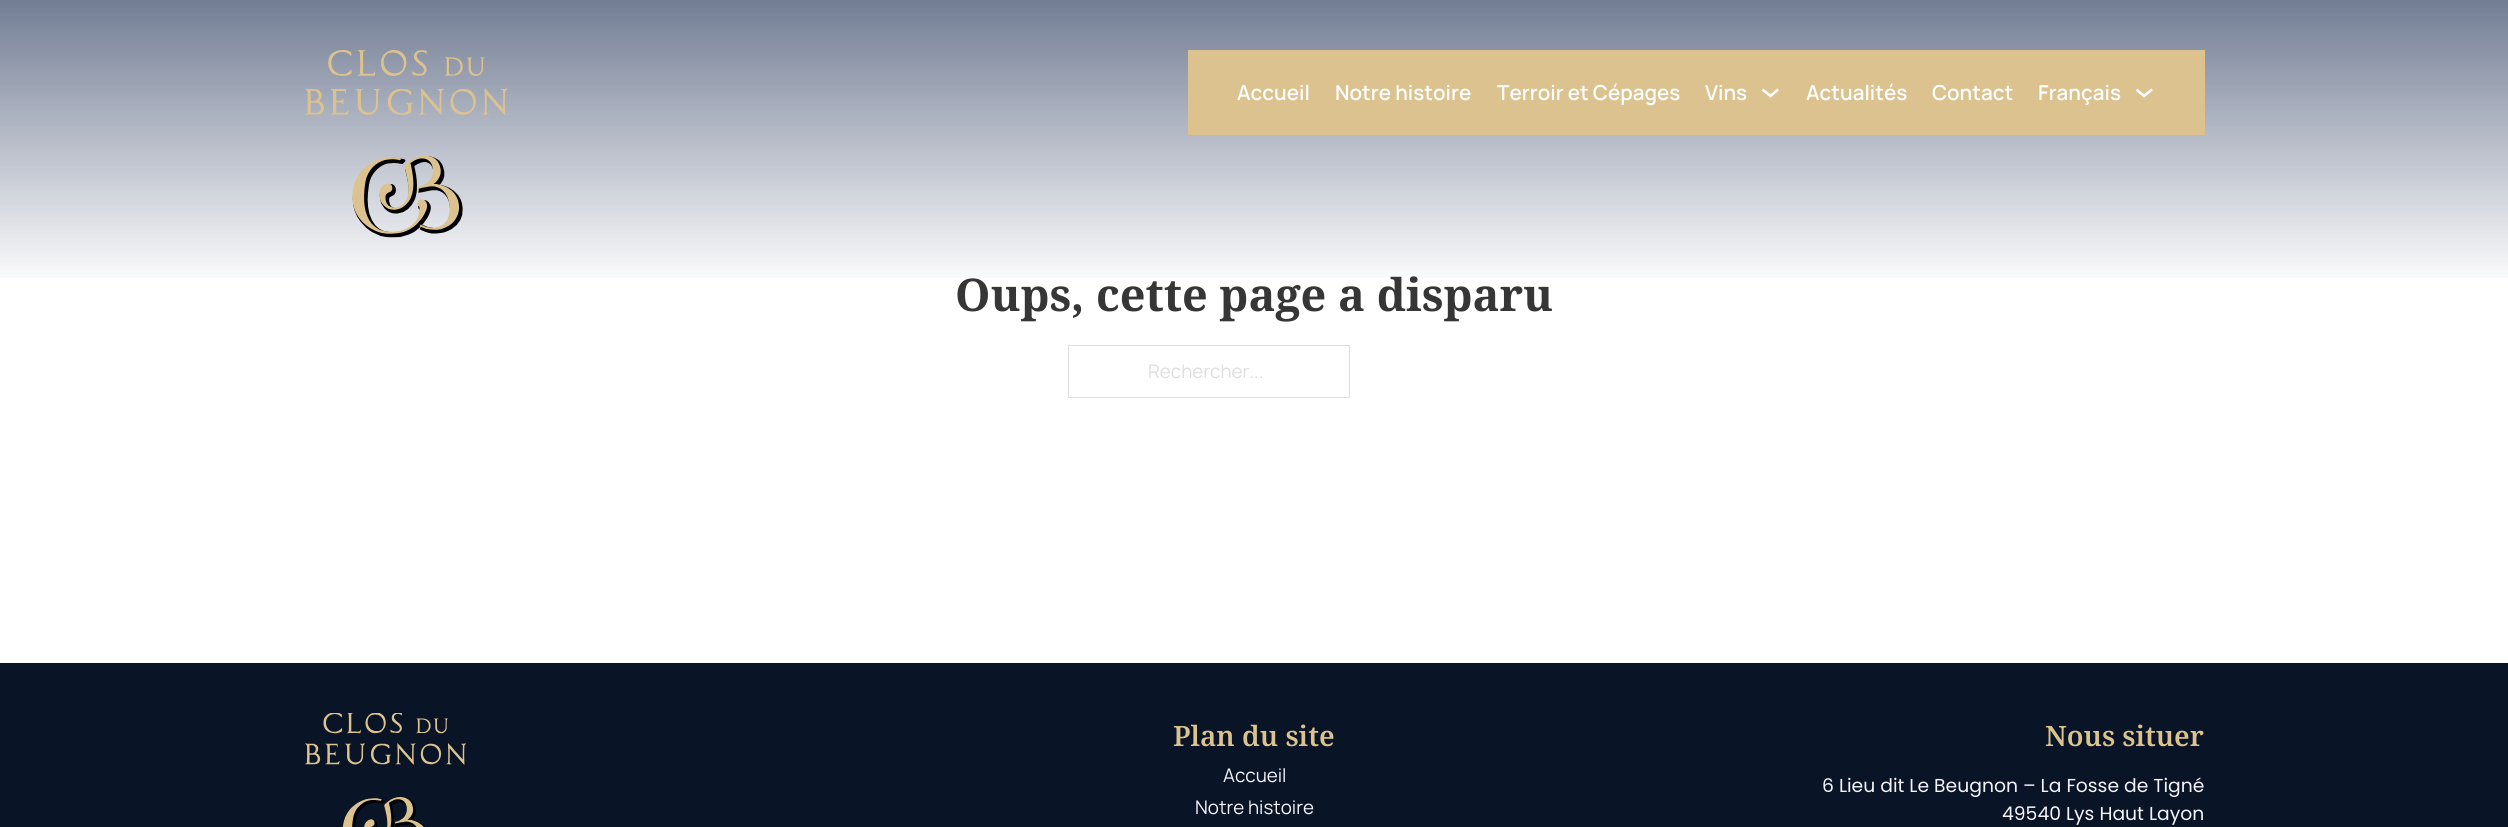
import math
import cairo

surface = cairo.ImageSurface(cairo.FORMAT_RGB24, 2508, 827)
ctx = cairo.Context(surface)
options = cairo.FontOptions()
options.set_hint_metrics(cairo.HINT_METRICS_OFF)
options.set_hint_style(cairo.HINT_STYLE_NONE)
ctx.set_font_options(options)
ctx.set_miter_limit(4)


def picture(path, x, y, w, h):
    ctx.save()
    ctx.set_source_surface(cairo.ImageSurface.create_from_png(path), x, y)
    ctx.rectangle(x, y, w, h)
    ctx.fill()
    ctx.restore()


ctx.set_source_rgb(1, 1, 1)
ctx.paint()
ctx.select_font_face("Noto Serif", cairo.FONT_SLANT_NORMAL, cairo.FONT_WEIGHT_BOLD)
ctx.set_font_size(45)
ctx.set_source_rgb(0.212, 0.212, 0.212)
ctx.move_to(955, 311)
ctx.show_text("Oups, cette page a disparu")
gradient = cairo.LinearGradient(1254, 0, 1254, 288)
gradient.add_color_stop_rgba(0, 0.153, 0.216, 0.357, 0.65)
gradient.add_color_stop_rgba(1, 0.153, 0.216, 0.357, 0)
ctx.set_source(gradient)
ctx.rectangle(0, 0, 2508, 278)
ctx.fill()
picture("img1.png", 305, 50, 203, 188)
ctx.set_source_rgb(0.863, 0.761, 0.557)
ctx.rectangle(1188, 50, 1017, 85)
ctx.fill()
ctx.select_font_face("Manrope SemiBold")
ctx.set_font_size(20.6)
ctx.set_source_rgb(1, 1, 1)
ctx.move_to(1237, 100)
ctx.show_text("Accueil")
ctx.move_to(1335, 100)
ctx.show_text("Notre histoire")
ctx.move_to(1497, 100)
ctx.show_text("Terroir et Cépages")
ctx.move_to(1705, 100)
ctx.show_text("Vins")
ctx.new_path()
ctx.move_to(1762.5, 89.5)
ctx.line_to(1770.5, 96)
ctx.line_to(1778, 89.5)
ctx.set_line_width(2.6)
ctx.stroke()
ctx.move_to(1806, 100)
ctx.show_text("Actualités")
ctx.move_to(1932, 100)
ctx.show_text("Contact")
ctx.move_to(2038, 100)
ctx.show_text("Français")
ctx.new_path()
ctx.move_to(2136.5, 89.5)
ctx.line_to(2144, 96)
ctx.line_to(2152, 89.5)
ctx.stroke()
ctx.rectangle(1068.5, 345.5, 281, 52)
ctx.set_source_rgb(0.867, 0.871, 0.875)
ctx.set_line_width(1)
ctx.stroke()
ctx.select_font_face("Manrope")
ctx.set_font_size(18.75)
ctx.move_to(1148, 378)
ctx.show_text("Rechercher...")
ctx.set_source_rgb(0.039, 0.082, 0.149)
ctx.rectangle(0, 663, 2508, 164)
ctx.fill()
picture("img2.png", 305, 713, 161, 114)
ctx.select_font_face("Noto Serif SemiBold")
ctx.set_font_size(28)
ctx.set_source_rgb(0.863, 0.761, 0.557)
ctx.move_to(1173, 746)
ctx.show_text("Plan du site")
ctx.select_font_face("Manrope")
ctx.set_font_size(18.75)
ctx.set_source_rgb(0.957, 0.957, 0.973)
ctx.move_to(1223, 782)
ctx.show_text("Accueil")
ctx.move_to(1195, 814)
ctx.show_text("Notre histoire")
ctx.select_font_face("Noto Serif SemiBold")
ctx.set_font_size(28)
ctx.set_source_rgb(0.863, 0.761, 0.557)
ctx.move_to(2045, 746)
ctx.show_text("Nous situer")
ctx.select_font_face("Poppins")
ctx.set_font_size(18.75)
ctx.set_source_rgb(0.957, 0.957, 0.973)
ctx.move_to(1822, 792)
ctx.show_text("6 Lieu dit Le Beugnon – La Fosse de Tigné")
ctx.move_to(2002, 820)
ctx.show_text("49540 Lys Haut Layon")
surface.write_to_png("page.png")
